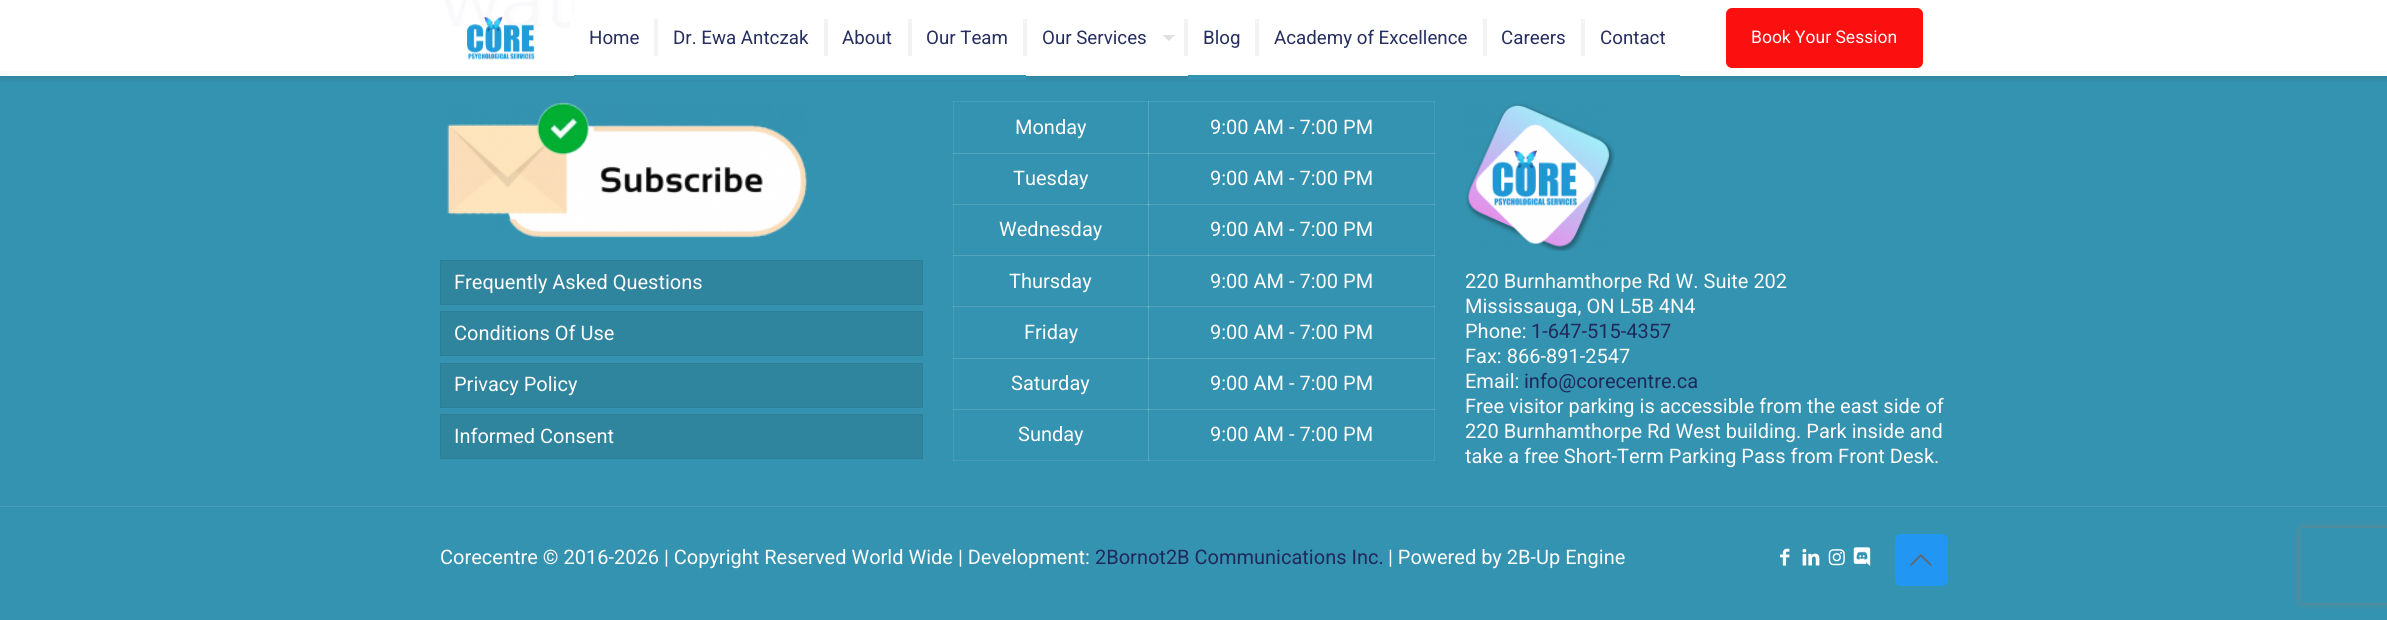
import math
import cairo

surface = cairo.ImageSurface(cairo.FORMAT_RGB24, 2387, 620)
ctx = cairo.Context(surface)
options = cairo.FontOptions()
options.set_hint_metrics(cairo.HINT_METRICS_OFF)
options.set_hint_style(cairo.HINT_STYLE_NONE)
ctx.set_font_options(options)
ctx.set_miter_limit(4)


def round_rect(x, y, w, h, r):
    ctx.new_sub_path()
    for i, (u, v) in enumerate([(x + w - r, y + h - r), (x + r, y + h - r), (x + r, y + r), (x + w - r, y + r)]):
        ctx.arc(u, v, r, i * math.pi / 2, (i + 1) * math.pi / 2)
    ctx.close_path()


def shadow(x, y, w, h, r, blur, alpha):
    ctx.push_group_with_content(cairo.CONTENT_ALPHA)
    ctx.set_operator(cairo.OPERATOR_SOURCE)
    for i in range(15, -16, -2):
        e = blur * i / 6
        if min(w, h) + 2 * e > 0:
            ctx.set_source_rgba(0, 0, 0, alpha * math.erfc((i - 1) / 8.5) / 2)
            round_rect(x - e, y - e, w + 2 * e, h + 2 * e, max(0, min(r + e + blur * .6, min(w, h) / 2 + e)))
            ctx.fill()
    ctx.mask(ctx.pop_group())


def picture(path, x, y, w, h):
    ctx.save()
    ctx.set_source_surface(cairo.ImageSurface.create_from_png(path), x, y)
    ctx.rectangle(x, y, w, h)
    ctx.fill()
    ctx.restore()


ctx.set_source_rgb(1, 1, 1)
ctx.paint()
picture("img1.png", 443, 0, 372, 46)
ctx.set_source_rgb(0.204, 0.576, 0.69)
ctx.rectangle(0, 76, 2387, 544)
ctx.fill()
ctx.set_source_rgb(0.976, 0.988, 0.992)
ctx.rectangle(0, 71, 2387, 5)
ctx.fill()
ctx.save()
ctx.rectangle(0, 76, 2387, 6)
ctx.clip()
ctx.set_source_rgb(0.008, 0.016, 0.02)
shadow(0, 3, 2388, 76, 0, 3, 0.1)
ctx.restore()
picture("img2.png", 466, 16, 69, 44)
ctx.set_source_rgba(1, 1, 1, 0.97)
ctx.rectangle(574, 0, 1106, 75)
ctx.fill()
ctx.set_source_rgb(0.953, 0.953, 0.953)
ctx.rectangle(654, 19, 4, 37)
ctx.fill()
ctx.select_font_face("Roboto")
ctx.set_font_size(18.75)
ctx.set_source_rgb(0.153, 0.184, 0.376)
ctx.move_to(589, 44)
ctx.show_text("Home")
ctx.set_source_rgb(0.204, 0.576, 0.69)
ctx.rectangle(574, 75, 452, 5)
ctx.fill()
ctx.set_source_rgb(0.953, 0.953, 0.953)
ctx.rectangle(824, 19, 4, 37)
ctx.fill()
ctx.set_source_rgb(0.153, 0.184, 0.376)
ctx.move_to(673, 44)
ctx.show_text("Dr. Ewa Antczak")
ctx.set_source_rgb(0.953, 0.953, 0.953)
ctx.rectangle(908, 19, 4, 37)
ctx.fill()
ctx.set_source_rgb(0.153, 0.184, 0.376)
ctx.move_to(842, 44)
ctx.show_text("About")
ctx.set_source_rgb(0.953, 0.953, 0.953)
ctx.rectangle(1023, 19, 4, 37)
ctx.fill()
ctx.set_source_rgb(0.153, 0.184, 0.376)
ctx.move_to(926, 44)
ctx.show_text("Our Team")
ctx.set_source_rgb(0.953, 0.953, 0.953)
ctx.rectangle(1184, 19, 4, 37)
ctx.fill()
ctx.set_source_rgb(0.153, 0.184, 0.376)
ctx.move_to(1042, 44)
ctx.show_text("Our Services")
ctx.set_source_rgb(0.878, 0.878, 0.878)
ctx.new_path()
ctx.move_to(1162.5, 35)
ctx.line_to(1175, 35)
ctx.line_to(1169, 41)
ctx.close_path()
ctx.fill()
ctx.set_source_rgb(0.953, 0.953, 0.953)
ctx.rectangle(1255, 19, 4, 37)
ctx.fill()
ctx.set_source_rgb(0.153, 0.184, 0.376)
ctx.move_to(1203, 44)
ctx.show_text("Blog")
ctx.set_source_rgb(0.204, 0.576, 0.69)
ctx.rectangle(1188, 75, 492, 5)
ctx.fill()
ctx.set_source_rgb(0.953, 0.953, 0.953)
ctx.rectangle(1483, 19, 4, 37)
ctx.fill()
ctx.set_source_rgb(0.153, 0.184, 0.376)
ctx.move_to(1274, 44)
ctx.show_text("Academy of Excellence")
ctx.set_source_rgb(0.953, 0.953, 0.953)
ctx.rectangle(1581, 19, 4, 37)
ctx.fill()
ctx.set_source_rgb(0.153, 0.184, 0.376)
ctx.move_to(1501, 44)
ctx.show_text("Careers")
ctx.move_to(1600, 44)
ctx.show_text("Contact")
ctx.set_source_rgb(0.984, 0.059, 0.059)
round_rect(1726, 8, 197, 60, 6)
ctx.fill()
ctx.set_font_size(17.5)
ctx.set_source_rgb(0.988, 0.98, 0.98)
ctx.move_to(1751, 43)
ctx.show_text("Book Your Session")
ctx.set_source_rgb(0.267, 0.612, 0.714)
ctx.rectangle(953, 101, 1, 53)
ctx.fill()
ctx.rectangle(953, 101, 196, 1)
ctx.fill()
ctx.set_source_rgb(0.325, 0.643, 0.737)
ctx.rectangle(953, 101, 1, 1)
ctx.fill()
ctx.rectangle(1148, 101, 1, 53)
ctx.fill()
ctx.set_source_rgb(0.267, 0.612, 0.714)
ctx.rectangle(1434, 101, 1, 309)
ctx.fill()
ctx.set_source_rgb(0.325, 0.643, 0.737)
ctx.rectangle(953, 153, 482, 1)
ctx.fill()
ctx.set_source_rgb(0.431, 0.698, 0.776)
ctx.rectangle(953, 153, 1, 1)
ctx.fill()
ctx.set_source_rgb(0.267, 0.612, 0.714)
ctx.rectangle(953, 204, 1, 52)
ctx.fill()
ctx.set_source_rgb(0.325, 0.643, 0.737)
ctx.rectangle(1148, 204, 1, 52)
ctx.fill()
ctx.rectangle(953, 255, 482, 1)
ctx.fill()
ctx.set_source_rgb(0.431, 0.698, 0.776)
ctx.rectangle(953, 255, 1, 1)
ctx.fill()
ctx.set_source_rgb(0.267, 0.612, 0.714)
ctx.rectangle(953, 306, 1, 53)
ctx.fill()
ctx.set_source_rgb(0.325, 0.643, 0.737)
ctx.rectangle(1148, 306, 1, 53)
ctx.fill()
ctx.rectangle(1434, 306, 1, 2)
ctx.fill()
ctx.rectangle(953, 358, 482, 1)
ctx.fill()
ctx.set_source_rgb(0.431, 0.698, 0.776)
ctx.rectangle(953, 358, 1, 1)
ctx.fill()
ctx.set_source_rgb(0.267, 0.612, 0.714)
ctx.rectangle(953, 409, 1, 52)
ctx.fill()
ctx.rectangle(953, 460, 196, 1)
ctx.fill()
ctx.set_source_rgb(0.325, 0.643, 0.737)
ctx.rectangle(953, 460, 1, 1)
ctx.fill()
ctx.rectangle(1148, 409, 1, 52)
ctx.fill()
ctx.set_source_rgb(0.267, 0.612, 0.714)
ctx.rectangle(1148, 460, 287, 1)
ctx.fill()
ctx.set_source_rgb(0.431, 0.698, 0.776)
ctx.rectangle(1148, 460, 1, 1)
ctx.fill()
ctx.set_source_rgb(0.267, 0.612, 0.714)
ctx.rectangle(1434, 409, 1, 52)
ctx.fill()
ctx.set_source_rgb(0.325, 0.643, 0.737)
ctx.rectangle(1434, 460, 1, 1)
ctx.fill()
picture("img3.png", 447, 102, 360, 136)
ctx.set_source_rgb(0.184, 0.518, 0.62)
ctx.rectangle(440.5, 260.5, 482, 44)
ctx.fill_preserve()
ctx.set_source_rgb(0.176, 0.498, 0.596)
ctx.set_line_width(1)
ctx.stroke()
ctx.set_font_size(20)
ctx.set_source_rgb(0.988, 0.98, 0.98)
ctx.move_to(454, 289)
ctx.show_text("Frequently Asked Questions")
ctx.set_source_rgb(0.184, 0.518, 0.62)
ctx.rectangle(440.5, 311.5, 482, 44)
ctx.fill_preserve()
ctx.set_source_rgb(0.176, 0.498, 0.596)
ctx.stroke()
ctx.set_source_rgb(0.988, 0.98, 0.98)
ctx.move_to(454, 340)
ctx.show_text("Conditions Of Use")
ctx.set_source_rgb(0.184, 0.518, 0.62)
ctx.rectangle(440.5, 363.5, 482, 44)
ctx.fill_preserve()
ctx.set_source_rgb(0.176, 0.498, 0.596)
ctx.stroke()
ctx.set_source_rgb(0.988, 0.98, 0.98)
ctx.move_to(454, 391)
ctx.show_text("Privacy Policy")
ctx.set_source_rgb(0.184, 0.518, 0.62)
ctx.rectangle(440.5, 414.5, 482, 44)
ctx.fill_preserve()
ctx.set_source_rgb(0.176, 0.498, 0.596)
ctx.stroke()
ctx.set_source_rgb(0.988, 0.98, 0.98)
ctx.move_to(454, 443)
ctx.show_text("Informed Consent")
ctx.move_to(1015, 134)
ctx.show_text("Monday")
ctx.set_source_rgb(0.267, 0.612, 0.714)
ctx.rectangle(1148, 101, 287, 1)
ctx.fill()
ctx.set_source_rgb(0.431, 0.698, 0.776)
ctx.rectangle(1148, 101, 1, 1)
ctx.fill()
ctx.set_source_rgb(0.325, 0.643, 0.737)
ctx.rectangle(1434, 101, 1, 1)
ctx.fill()
ctx.set_source_rgb(0.988, 0.98, 0.98)
ctx.move_to(1210, 134)
ctx.show_text("9:00 AM - 7:00 PM")
ctx.set_source_rgb(0.263, 0.608, 0.706)
ctx.rectangle(953, 154, 1, 51)
ctx.fill()
ctx.set_source_rgb(0.322, 0.639, 0.729)
ctx.rectangle(1148, 154, 1, 51)
ctx.fill()
ctx.rectangle(953, 204, 482, 1)
ctx.fill()
ctx.set_source_rgb(0.427, 0.694, 0.773)
ctx.rectangle(953, 204, 1, 1)
ctx.fill()
ctx.set_source_rgb(0.988, 0.98, 0.98)
ctx.move_to(1013, 185)
ctx.show_text("Tuesday")
ctx.set_source_rgb(0.596, 0.784, 0.843)
ctx.rectangle(1148, 153, 1, 1)
ctx.fill()
ctx.set_source_rgb(0.431, 0.698, 0.776)
ctx.rectangle(1434, 153, 1, 1)
ctx.fill()
ctx.set_source_rgb(0.988, 0.98, 0.98)
ctx.move_to(1210, 185)
ctx.show_text("9:00 AM - 7:00 PM")
ctx.move_to(999, 236)
ctx.show_text("Wednesday")
ctx.set_source_rgb(0.592, 0.78, 0.839)
ctx.rectangle(1148, 204, 1, 1)
ctx.fill()
ctx.set_source_rgb(0.427, 0.694, 0.773)
ctx.rectangle(1434, 204, 1, 1)
ctx.fill()
ctx.set_source_rgb(0.988, 0.98, 0.98)
ctx.move_to(1210, 236)
ctx.show_text("9:00 AM - 7:00 PM")
ctx.set_source_rgb(0.263, 0.608, 0.706)
ctx.rectangle(953, 256, 1, 52)
ctx.fill()
ctx.set_source_rgb(0.322, 0.639, 0.729)
ctx.rectangle(1148, 256, 1, 52)
ctx.fill()
ctx.rectangle(953, 306, 1, 2)
ctx.fill()
ctx.rectangle(953, 306, 196, 1)
ctx.fill()
ctx.set_source_rgb(0.427, 0.694, 0.773)
ctx.rectangle(953, 306, 1, 1)
ctx.fill()
ctx.rectangle(1148, 306, 1, 2)
ctx.fill()
ctx.set_source_rgb(0.988, 0.98, 0.98)
ctx.move_to(1009, 288)
ctx.show_text("Thursday")
ctx.set_source_rgb(0.596, 0.784, 0.843)
ctx.rectangle(1148, 255, 1, 1)
ctx.fill()
ctx.set_source_rgb(0.431, 0.698, 0.776)
ctx.rectangle(1434, 255, 1, 1)
ctx.fill()
ctx.set_source_rgb(0.988, 0.98, 0.98)
ctx.move_to(1210, 288)
ctx.show_text("9:00 AM - 7:00 PM")
ctx.move_to(1024, 339)
ctx.show_text("Friday")
ctx.set_source_rgb(0.322, 0.639, 0.729)
ctx.rectangle(1148, 306, 287, 1)
ctx.fill()
ctx.set_source_rgb(0.592, 0.78, 0.839)
ctx.rectangle(1148, 306, 1, 1)
ctx.fill()
ctx.set_source_rgb(0.427, 0.694, 0.773)
ctx.rectangle(1434, 306, 1, 1)
ctx.fill()
ctx.set_source_rgb(0.988, 0.98, 0.98)
ctx.move_to(1210, 339)
ctx.show_text("9:00 AM - 7:00 PM")
ctx.set_source_rgb(0.263, 0.608, 0.706)
ctx.rectangle(953, 359, 1, 51)
ctx.fill()
ctx.set_source_rgb(0.322, 0.639, 0.729)
ctx.rectangle(1148, 359, 1, 51)
ctx.fill()
ctx.rectangle(953, 409, 482, 1)
ctx.fill()
ctx.set_source_rgb(0.427, 0.694, 0.773)
ctx.rectangle(953, 409, 1, 1)
ctx.fill()
ctx.set_source_rgb(0.988, 0.98, 0.98)
ctx.move_to(1011, 390)
ctx.show_text("Saturday")
ctx.set_source_rgb(0.596, 0.784, 0.843)
ctx.rectangle(1148, 358, 1, 1)
ctx.fill()
ctx.set_source_rgb(0.431, 0.698, 0.776)
ctx.rectangle(1434, 358, 1, 1)
ctx.fill()
ctx.set_source_rgb(0.988, 0.98, 0.98)
ctx.move_to(1210, 390)
ctx.show_text("9:00 AM - 7:00 PM")
ctx.move_to(1018, 441)
ctx.show_text("Sunday")
ctx.set_source_rgb(0.592, 0.78, 0.839)
ctx.rectangle(1148, 409, 1, 1)
ctx.fill()
ctx.set_source_rgb(0.427, 0.694, 0.773)
ctx.rectangle(1434, 409, 1, 1)
ctx.fill()
ctx.set_source_rgb(0.988, 0.98, 0.98)
ctx.move_to(1210, 441)
ctx.show_text("9:00 AM - 7:00 PM")
picture("img4.png", 1465, 103, 150, 148)
ctx.move_to(1465, 288)
ctx.show_text("220 Burnhamthorpe Rd W. Suite 202")
ctx.move_to(1465, 313)
ctx.show_text("Mississauga, ON L5B 4N4")
ctx.move_to(1465, 338)
ctx.show_text("Phone:")
ctx.set_source_rgb(0.125, 0.161, 0.357)
ctx.move_to(1531, 338)
ctx.show_text("1-647-515-4357")
ctx.set_source_rgb(0.988, 0.98, 0.98)
ctx.move_to(1465, 363)
ctx.show_text("Fax: 866-891-2547")
ctx.move_to(1465, 388)
ctx.show_text("Email:")
ctx.set_source_rgb(0.125, 0.161, 0.357)
ctx.move_to(1524, 388)
ctx.show_text("info@corecentre.ca")
ctx.set_source_rgb(0.988, 0.98, 0.98)
ctx.move_to(1465, 413)
ctx.show_text("Free visitor parking is accessible from the east side of")
ctx.move_to(1465, 438)
ctx.show_text("220 Burnhamthorpe Rd West building. Park inside and")
ctx.move_to(1465, 463)
ctx.show_text("take a free Short-Term Parking Pass from Front Desk.")
ctx.set_source_rgb(0.282, 0.62, 0.722)
ctx.rectangle(0, 506, 2387, 1)
ctx.fill()
ctx.set_source_rgb(0.988, 0.98, 0.98)
ctx.move_to(440, 564)
ctx.show_text("Corecentre © 2016-2026 | Copyright Reserved World Wide | Development:")
ctx.set_source_rgb(0.125, 0.161, 0.357)
ctx.move_to(1095, 564)
ctx.show_text("2Bornot2B Communications Inc.")
ctx.set_source_rgb(0.988, 0.98, 0.98)
ctx.move_to(1388, 564)
ctx.show_text("| Powered by 2B-Up Engine")
picture("img5.png", 1780, 548, 10, 18)
picture("img6.png", 1802, 548, 18, 18)
picture("img7.png", 1828, 549, 17, 17)
picture("img8.png", 1853, 547, 18, 19)
ctx.set_source_rgb(0.129, 0.588, 0.953)
round_rect(1895, 534, 53, 52, 6)
ctx.fill()
picture("img9.png", 1910, 554, 22, 12)
ctx.save()
ctx.set_fill_rule(cairo.FILL_RULE_EVEN_ODD)
ctx.new_path()
ctx.move_to(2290, 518)
ctx.line_to(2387, 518)
ctx.line_to(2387, 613)
ctx.line_to(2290, 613)
ctx.close_path()
ctx.move_to(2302.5, 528)
ctx.line_to(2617.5, 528)
ctx.curve_to(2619, 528, 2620, 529, 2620, 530.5)
ctx.line_to(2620, 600.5)
ctx.curve_to(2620, 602, 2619, 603, 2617.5, 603)
ctx.line_to(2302.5, 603)
ctx.curve_to(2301, 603, 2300, 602, 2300, 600.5)
ctx.line_to(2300, 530.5)
ctx.curve_to(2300, 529, 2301, 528, 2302.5, 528)
ctx.close_path()
ctx.clip()
ctx.set_source_rgb(0.502, 0.502, 0.502)
shadow(2300, 528, 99, 75, 2.5, 3, 1)
ctx.restore()
surface.write_to_png("page.png")
